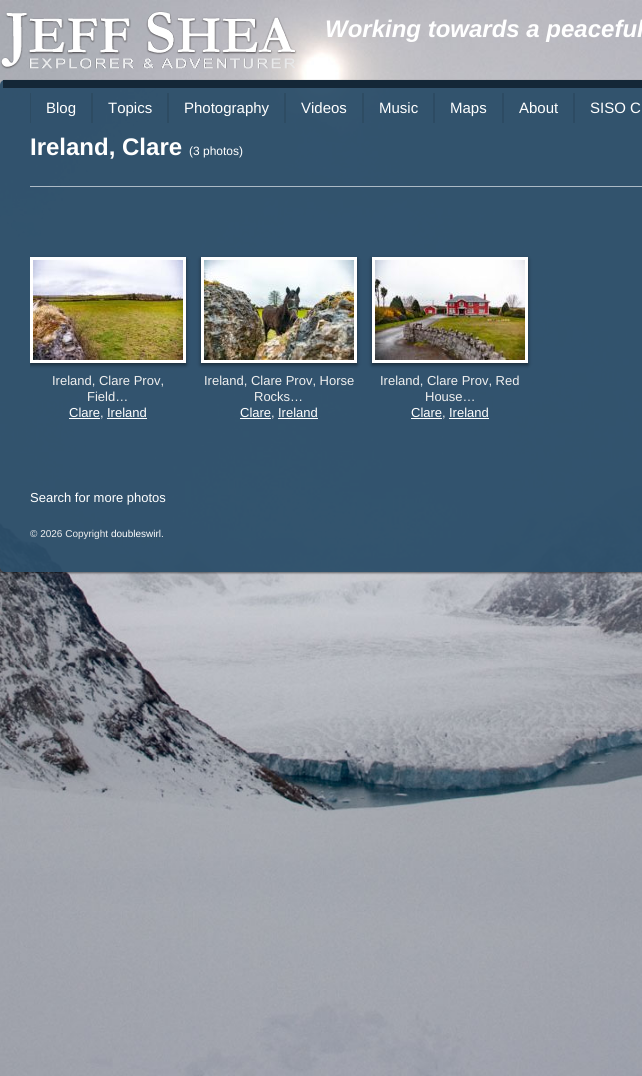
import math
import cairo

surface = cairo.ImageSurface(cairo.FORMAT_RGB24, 642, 1076)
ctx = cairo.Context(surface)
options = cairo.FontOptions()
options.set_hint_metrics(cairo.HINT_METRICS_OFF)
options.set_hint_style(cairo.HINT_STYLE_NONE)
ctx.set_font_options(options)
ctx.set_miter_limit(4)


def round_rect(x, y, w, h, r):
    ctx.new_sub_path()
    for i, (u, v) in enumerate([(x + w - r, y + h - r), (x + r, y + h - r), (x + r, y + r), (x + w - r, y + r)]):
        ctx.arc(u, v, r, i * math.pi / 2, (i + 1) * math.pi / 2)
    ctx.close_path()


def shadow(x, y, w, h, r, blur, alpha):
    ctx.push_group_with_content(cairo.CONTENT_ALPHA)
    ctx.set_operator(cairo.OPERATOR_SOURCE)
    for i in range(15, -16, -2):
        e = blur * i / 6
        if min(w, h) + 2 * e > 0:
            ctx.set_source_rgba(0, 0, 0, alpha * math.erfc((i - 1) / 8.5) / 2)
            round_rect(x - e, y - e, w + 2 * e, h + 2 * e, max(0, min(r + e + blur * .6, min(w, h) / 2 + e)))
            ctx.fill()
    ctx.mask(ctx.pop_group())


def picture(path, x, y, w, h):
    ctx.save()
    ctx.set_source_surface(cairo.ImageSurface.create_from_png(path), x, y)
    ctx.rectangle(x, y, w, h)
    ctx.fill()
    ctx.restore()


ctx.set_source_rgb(1, 1, 1)
ctx.paint()
picture("img1.png", 0, 0, 642, 1076)
picture("img2.png", 0, 11, 297, 58)
ctx.select_font_face("Liberation Sans", cairo.FONT_SLANT_ITALIC, cairo.FONT_WEIGHT_BOLD)
ctx.set_font_size(24)
ctx.set_source_rgb(1, 1, 1)
ctx.move_to(325, 37)
ctx.show_text("Working towards a peaceful")
ctx.save()
ctx.set_fill_rule(cairo.FILL_RULE_EVEN_ODD)
ctx.new_path()
ctx.move_to(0, 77)
ctx.line_to(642, 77)
ctx.line_to(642, 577)
ctx.line_to(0, 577)
ctx.close_path()
ctx.move_to(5, 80)
ctx.line_to(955, 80)
ctx.curve_to(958, 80, 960, 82, 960, 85)
ctx.line_to(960, 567)
ctx.curve_to(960, 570, 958, 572, 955, 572)
ctx.line_to(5, 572)
ctx.curve_to(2, 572, 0, 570, 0, 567)
ctx.line_to(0, 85)
ctx.curve_to(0, 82, 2, 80, 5, 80)
ctx.close_path()
ctx.clip()
ctx.set_source_rgb(0, 0, 0)
shadow(0, 81, 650, 492, 5, 1, 0.5)
ctx.restore()
ctx.set_source_rgba(0.169, 0.306, 0.412, 0.95)
round_rect(0, 80, 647, 492, 5)
ctx.fill()
ctx.set_source_rgb(0.082, 0.153, 0.216)
ctx.rectangle(3, 80, 639, 8)
ctx.fill()
ctx.set_source_rgb(0.176, 0.294, 0.384)
ctx.rectangle(91, 93, 2, 30)
ctx.fill()
ctx.rectangle(30, 93, 1, 30)
ctx.fill()
ctx.select_font_face("Liberation Sans")
ctx.set_font_size(15)
ctx.set_source_rgb(1, 1, 1)
ctx.move_to(46, 113)
ctx.show_text("Blog")
ctx.set_source_rgb(0.176, 0.294, 0.384)
ctx.rectangle(167, 93, 2, 30)
ctx.fill()
ctx.set_source_rgb(1, 1, 1)
ctx.move_to(108, 113)
ctx.show_text("Topics")
ctx.set_source_rgb(0.18, 0.298, 0.388)
ctx.rectangle(284, 93, 2, 30)
ctx.fill()
ctx.set_source_rgb(1, 1, 1)
ctx.move_to(184, 113)
ctx.show_text("Photography")
ctx.set_source_rgb(0.18, 0.298, 0.388)
ctx.rectangle(362, 93, 2, 30)
ctx.fill()
ctx.set_source_rgb(1, 1, 1)
ctx.move_to(301, 113)
ctx.show_text("Videos")
ctx.set_source_rgb(0.176, 0.294, 0.388)
ctx.rectangle(433, 93, 2, 30)
ctx.fill()
ctx.set_source_rgb(1, 1, 1)
ctx.move_to(379, 113)
ctx.show_text("Music")
ctx.set_source_rgb(0.176, 0.294, 0.388)
ctx.rectangle(502, 93, 2, 30)
ctx.fill()
ctx.set_source_rgb(1, 1, 1)
ctx.move_to(450, 113)
ctx.show_text("Maps")
ctx.set_source_rgb(0.176, 0.294, 0.388)
ctx.rectangle(573, 93, 2, 30)
ctx.fill()
ctx.set_source_rgb(1, 1, 1)
ctx.move_to(519, 113)
ctx.show_text("About")
ctx.move_to(590, 113)
ctx.show_text("SISO C")
ctx.select_font_face("Liberation Sans", cairo.FONT_SLANT_NORMAL, cairo.FONT_WEIGHT_BOLD)
ctx.set_font_size(24)
ctx.move_to(30, 155)
ctx.show_text("Ireland, Clare")
ctx.select_font_face("Liberation Sans")
ctx.set_font_size(12)
ctx.move_to(189, 155)
ctx.show_text("(3 photos)")
ctx.set_source_rgb(0.678, 0.729, 0.773)
ctx.rectangle(30, 186, 612, 1)
ctx.fill()
ctx.save()
ctx.rectangle(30, 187, 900, 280)
ctx.clip()
ctx.set_source_rgb(0, 0, 0)
shadow(30, 259, 156, 106, 0, 2, 0.5)
ctx.restore()
ctx.rectangle(31.5, 258.5, 153, 103)
ctx.set_source_rgb(1, 1, 1)
ctx.set_line_width(3)
ctx.stroke()
picture("img3.png", 33, 260, 150, 100)
ctx.set_font_size(13)
ctx.set_source_rgb(0.937, 0.937, 0.937)
ctx.move_to(52, 385)
ctx.show_text("Ireland, Clare Prov,")
ctx.move_to(87, 401)
ctx.show_text("Field…")
ctx.set_source_rgb(1, 1, 1)
ctx.move_to(69, 417)
ctx.show_text("Clare")
ctx.rectangle(69, 418, 31, 1)
ctx.fill()
ctx.set_source_rgb(0.937, 0.937, 0.937)
ctx.move_to(100, 417)
ctx.show_text(",")
ctx.set_source_rgb(1, 1, 1)
ctx.move_to(107, 417)
ctx.show_text("Ireland")
ctx.rectangle(107, 418, 40, 1)
ctx.fill()
ctx.set_source_rgb(0, 0, 0)
shadow(201, 259, 156, 106, 0, 2, 0.5)
ctx.rectangle(202.5, 258.5, 153, 103)
ctx.set_source_rgb(1, 1, 1)
ctx.stroke()
picture("img4.png", 204, 260, 150, 100)
ctx.set_source_rgb(0.937, 0.937, 0.937)
ctx.move_to(204, 385)
ctx.show_text("Ireland, Clare Prov, Horse")
ctx.move_to(254, 401)
ctx.show_text("Rocks…")
ctx.set_source_rgb(1, 1, 1)
ctx.move_to(240, 417)
ctx.show_text("Clare")
ctx.rectangle(240, 418, 31, 1)
ctx.fill()
ctx.set_source_rgb(0.937, 0.937, 0.937)
ctx.move_to(271, 417)
ctx.show_text(",")
ctx.set_source_rgb(1, 1, 1)
ctx.move_to(278, 417)
ctx.show_text("Ireland")
ctx.rectangle(278, 418, 40, 1)
ctx.fill()
ctx.set_source_rgb(0, 0, 0)
shadow(372, 259, 156, 106, 0, 2, 0.5)
ctx.rectangle(373.5, 258.5, 153, 103)
ctx.set_source_rgb(1, 1, 1)
ctx.stroke()
picture("img5.png", 375, 260, 150, 100)
ctx.set_source_rgb(0.937, 0.937, 0.937)
ctx.move_to(380, 385)
ctx.show_text("Ireland, Clare Prov, Red")
ctx.move_to(425, 401)
ctx.show_text("House…")
ctx.set_source_rgb(1, 1, 1)
ctx.move_to(411, 417)
ctx.show_text("Clare")
ctx.rectangle(411, 418, 31, 1)
ctx.fill()
ctx.set_source_rgb(0.937, 0.937, 0.937)
ctx.move_to(442, 417)
ctx.show_text(",")
ctx.set_source_rgb(1, 1, 1)
ctx.move_to(449, 417)
ctx.show_text("Ireland")
ctx.rectangle(449, 418, 40, 1)
ctx.fill()
ctx.move_to(30, 502)
ctx.show_text("Search for more photos")
ctx.set_font_size(10)
ctx.set_source_rgb(0.937, 0.937, 0.937)
ctx.move_to(30, 537)
ctx.show_text("© 2026 Copyright")
ctx.set_source_rgb(1, 1, 1)
ctx.move_to(111, 537)
ctx.show_text("doubleswirl")
ctx.set_source_rgb(0.937, 0.937, 0.937)
ctx.move_to(161, 537)
ctx.show_text(".")
surface.write_to_png("page.png")
